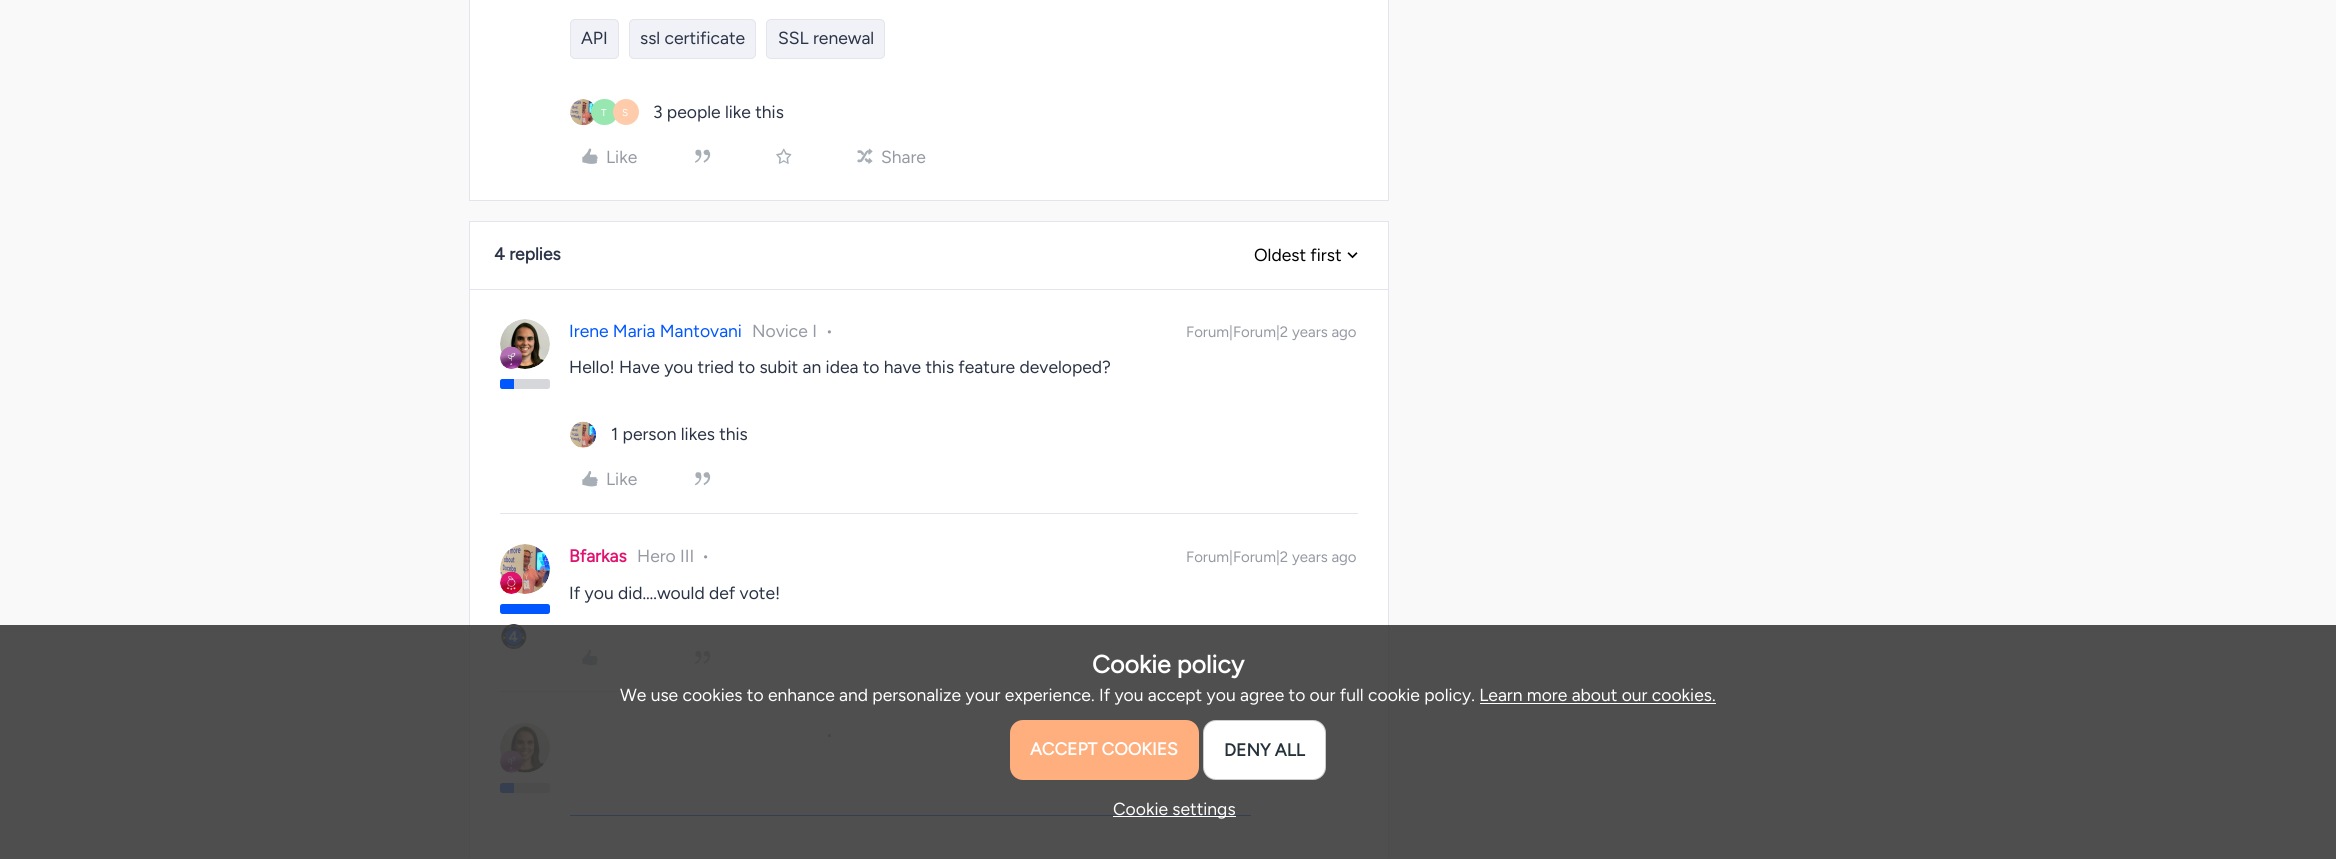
import math
import cairo

surface = cairo.ImageSurface(cairo.FORMAT_RGB24, 2336, 859)
ctx = cairo.Context(surface)
options = cairo.FontOptions()
options.set_hint_metrics(cairo.HINT_METRICS_OFF)
options.set_hint_style(cairo.HINT_STYLE_NONE)
ctx.set_font_options(options)
ctx.set_miter_limit(4)


def round_rect(x, y, w, h, r):
    ctx.new_sub_path()
    for i, (u, v) in enumerate([(x + w - r, y + h - r), (x + r, y + h - r), (x + r, y + r), (x + w - r, y + r)]):
        ctx.arc(u, v, r, i * math.pi / 2, (i + 1) * math.pi / 2)
    ctx.close_path()


def picture(path, x, y, w, h):
    ctx.save()
    ctx.set_source_surface(cairo.ImageSurface.create_from_png(path), x, y)
    ctx.rectangle(x, y, w, h)
    ctx.fill()
    ctx.restore()


ctx.set_source_rgb(0.973, 0.973, 0.973)
ctx.paint()
ctx.set_source_rgb(1, 1, 1)
ctx.rectangle(469.5, -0.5, 919, 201)
ctx.fill_preserve()
ctx.set_source_rgb(0.89, 0.894, 0.925)
ctx.set_line_width(1)
ctx.stroke()
ctx.set_source_rgb(0.941, 0.949, 0.965)
round_rect(570.5, 19.5, 48, 39, 4.5)
ctx.fill_preserve()
ctx.set_source_rgb(0.89, 0.894, 0.925)
ctx.stroke()
ctx.select_font_face("Figtree")
ctx.set_font_size(17.5)
ctx.set_source_rgb(0.169, 0.2, 0.275)
ctx.move_to(581, 44)
ctx.show_text("API")
ctx.set_source_rgb(0.941, 0.949, 0.965)
round_rect(629.5, 19.5, 126, 39, 4.5)
ctx.fill_preserve()
ctx.set_source_rgb(0.89, 0.894, 0.925)
ctx.stroke()
ctx.set_source_rgb(0.169, 0.2, 0.275)
ctx.move_to(640, 44)
ctx.show_text("ssl certificate")
ctx.set_source_rgb(0.941, 0.949, 0.965)
round_rect(766.5, 19.5, 118, 39, 4.5)
ctx.fill_preserve()
ctx.set_source_rgb(0.89, 0.894, 0.925)
ctx.stroke()
ctx.set_source_rgb(0.169, 0.2, 0.275)
ctx.move_to(778, 44)
ctx.show_text("SSL renewal")
picture("img1.png", 570, 99, 24, 26)
ctx.set_source_rgb(0.596, 0.906, 0.694)
round_rect(591, 99, 27, 26, 13)
ctx.fill()
ctx.set_font_size(10)
ctx.set_source_rgb(1, 1, 1)
ctx.move_to(601, 116)
ctx.show_text("T")
ctx.set_source_rgb(0.996, 0.8, 0.671)
ctx.new_path()
ctx.arc(626, 112, 13, 0, 2 * math.pi)
ctx.fill()
ctx.set_source_rgb(1, 1, 1)
ctx.move_to(622, 116)
ctx.show_text("S")
ctx.set_font_size(17.5)
ctx.set_source_rgb(0.169, 0.2, 0.275)
ctx.move_to(653, 118)
ctx.show_text("3 people like this")
picture("img2.png", 582, 148, 16, 16)
ctx.set_source_rgb(0.584, 0.6, 0.635)
ctx.move_to(606, 163)
ctx.show_text("Like")
picture("img3.png", 695, 149, 16, 14)
picture("img4.png", 776, 148, 16, 16)
picture("img5.png", 857, 148, 16, 16)
ctx.move_to(881, 163)
ctx.show_text("Share")
ctx.set_source_rgb(1, 1, 1)
ctx.rectangle(469.5, 221.5, 919, 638)
ctx.fill_preserve()
ctx.set_source_rgb(0.89, 0.894, 0.925)
ctx.stroke()
ctx.rectangle(470, 289, 918, 1)
ctx.fill()
ctx.select_font_face("Figtree", cairo.FONT_SLANT_NORMAL, cairo.FONT_WEIGHT_BOLD)
ctx.set_source_rgb(0.169, 0.2, 0.275)
ctx.move_to(494, 260)
ctx.show_text("4 replies")
ctx.select_font_face("Figtree")
ctx.set_source_rgb(0, 0, 0)
ctx.move_to(1254, 261)
ctx.show_text("Oldest first")
picture("img6.png", 1347, 252, 11, 7)
picture("img7.png", 500, 319, 50, 50)
picture("img8.png", 500, 346, 23, 23)
ctx.set_source_rgb(0.835, 0.843, 0.859)
round_rect(500, 379, 50, 10, 2.5)
ctx.fill()
ctx.set_source_rgb(0, 0.341, 1)
ctx.new_path()
ctx.move_to(502.5, 379)
ctx.line_to(514, 379)
ctx.line_to(514, 389)
ctx.line_to(502.5, 389)
ctx.curve_to(501, 389, 500, 388, 500, 386.5)
ctx.line_to(500, 381.5)
ctx.curve_to(500, 380, 501, 379, 502.5, 379)
ctx.close_path()
ctx.fill()
ctx.move_to(569, 337)
ctx.show_text("Irene Maria Mantovani")
ctx.set_source_rgb(0.584, 0.6, 0.635)
ctx.move_to(752, 337)
ctx.show_text("Novice I")
picture("img9.png", 827, 330, 4, 4)
ctx.set_font_size(15)
ctx.move_to(1186, 337)
ctx.show_text("Forum|Forum|2 years ago")
ctx.set_font_size(17.5)
ctx.set_source_rgb(0.169, 0.2, 0.275)
ctx.move_to(569, 373)
ctx.show_text("Hello! Have you tried to subit an idea to have this feature developed?")
picture("img10.png", 570, 421, 26, 27)
ctx.move_to(611, 440)
ctx.show_text("1 person likes this")
picture("img11.png", 582, 471, 16, 16)
ctx.set_source_rgb(0.584, 0.6, 0.635)
ctx.move_to(606, 485)
ctx.show_text("Like")
picture("img12.png", 695, 472, 16, 14)
ctx.set_source_rgb(0.89, 0.894, 0.925)
ctx.rectangle(500, 513, 858, 1)
ctx.fill()
picture("img13.png", 500, 544, 50, 50)
picture("img14.png", 500, 571, 23, 23)
ctx.set_source_rgb(0, 0.341, 1)
round_rect(500, 604, 50, 10, 2.5)
ctx.fill()
picture("img15.png", 501, 624, 26, 25)
ctx.select_font_face("Figtree", cairo.FONT_SLANT_NORMAL, cairo.FONT_WEIGHT_BOLD)
ctx.set_source_rgb(0.875, 0.082, 0.443)
ctx.move_to(569, 562)
ctx.show_text("Bfarkas")
ctx.select_font_face("Figtree")
ctx.set_source_rgb(0.584, 0.6, 0.635)
ctx.move_to(637, 562)
ctx.show_text("Hero III")
picture("img16.png", 704, 555, 4, 4)
ctx.set_font_size(15)
ctx.move_to(1186, 562)
ctx.show_text("Forum|Forum|2 years ago")
ctx.set_font_size(17.5)
ctx.set_source_rgb(0.169, 0.2, 0.275)
ctx.move_to(569, 599)
ctx.show_text("If you did….would def vote!")
picture("img17.png", 582, 649, 16, 17)
picture("img18.png", 695, 651, 16, 13)
ctx.set_source_rgb(0.89, 0.894, 0.925)
ctx.rectangle(500, 691, 858, 1)
ctx.fill()
picture("img19.png", 500, 723, 50, 50)
picture("img20.png", 500, 750, 23, 23)
ctx.set_source_rgb(0.835, 0.843, 0.859)
round_rect(500, 783, 50, 10, 2.5)
ctx.fill()
ctx.set_source_rgb(0, 0.341, 1)
ctx.new_path()
ctx.move_to(502.5, 783)
ctx.line_to(514, 783)
ctx.line_to(514, 793)
ctx.line_to(502.5, 793)
ctx.curve_to(501, 793, 500, 792, 500, 790.5)
ctx.line_to(500, 785.5)
ctx.curve_to(500, 784, 501, 783, 502.5, 783)
ctx.close_path()
ctx.fill()
picture("img21.png", 827, 734, 4, 4)
ctx.rectangle(570, 815, 681, 1)
ctx.fill()
ctx.set_source_rgba(0.235, 0.235, 0.235, 0.9)
ctx.rectangle(0, 625, 2336, 234)
ctx.fill()
ctx.select_font_face("Figtree", cairo.FONT_SLANT_NORMAL, cairo.FONT_WEIGHT_BOLD)
ctx.set_font_size(25)
ctx.set_source_rgb(1, 1, 1)
ctx.move_to(1092, 673)
ctx.show_text("Cookie policy")
ctx.select_font_face("Figtree")
ctx.set_font_size(17.5)
ctx.move_to(620, 701)
ctx.show_text("We use cookies to enhance and personalize your experience. If you accept you agree to our full cookie policy. Learn more about our cookies.")
ctx.rectangle(1480, 703, 236, 1)
ctx.fill()
ctx.set_source_rgb(1, 0.686, 0.494)
round_rect(1010, 720, 189, 60, 13)
ctx.fill()
ctx.select_font_face("Figtree", cairo.FONT_SLANT_NORMAL, cairo.FONT_WEIGHT_BOLD)
ctx.set_source_rgb(1, 1, 1)
ctx.move_to(1030, 755)
ctx.show_text("ACCEPT COOKIES")
round_rect(1203, 720, 123, 60, 13)
ctx.fill()
round_rect(1203.5, 720.5, 122, 59, 12.5)
ctx.set_source_rgba(0, 0, 0, 0.2)
ctx.stroke()
ctx.set_source_rgb(0.145, 0.192, 0.231)
ctx.move_to(1224, 756)
ctx.show_text("DENY ALL")
ctx.set_source_rgb(1, 1, 1)
ctx.rectangle(1113, 816, 123, 1)
ctx.fill()
ctx.select_font_face("Figtree")
ctx.move_to(1113, 815)
ctx.show_text("Cookie settings")
surface.write_to_png("page.png")
